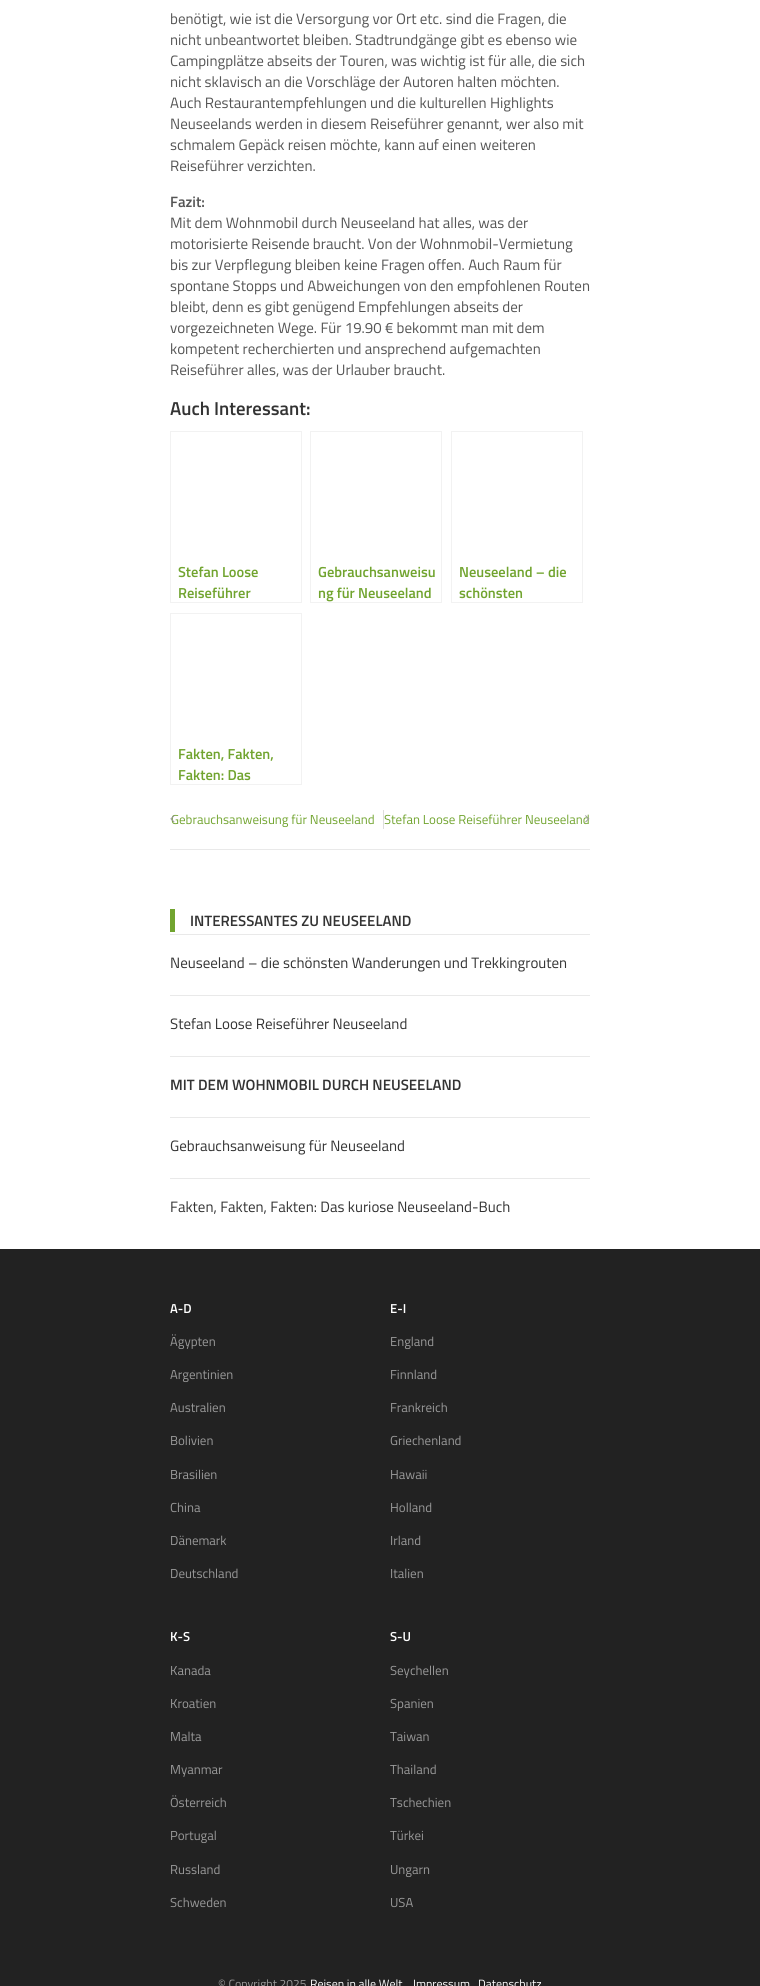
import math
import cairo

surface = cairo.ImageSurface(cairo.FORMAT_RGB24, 760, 1986)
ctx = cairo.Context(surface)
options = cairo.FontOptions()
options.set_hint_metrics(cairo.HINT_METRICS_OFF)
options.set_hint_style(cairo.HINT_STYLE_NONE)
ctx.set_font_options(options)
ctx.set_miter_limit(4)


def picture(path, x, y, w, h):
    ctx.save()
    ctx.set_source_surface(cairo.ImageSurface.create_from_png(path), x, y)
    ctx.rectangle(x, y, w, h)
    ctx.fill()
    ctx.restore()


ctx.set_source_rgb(1, 1, 1)
ctx.paint()
ctx.select_font_face("Titillium Web")
ctx.set_font_size(15)
ctx.set_source_rgb(0.333, 0.333, 0.333)
ctx.move_to(170, 24)
ctx.show_text("benötigt, wie ist die Versorgung vor Ort etc. sind die Fragen, die")
ctx.move_to(170, 45)
ctx.show_text("nicht unbeantwortet bleiben. Stadtrundgänge gibt es ebenso wie")
ctx.move_to(170, 66)
ctx.show_text("Campingplätze abseits der Touren, was wichtig ist für alle, die sich")
ctx.move_to(170, 87)
ctx.show_text("nicht sklavisch an die Vorschläge der Autoren halten möchten.")
ctx.move_to(170, 108)
ctx.show_text("Auch Restaurantempfehlungen und die kulturellen Highlights")
ctx.move_to(170, 129)
ctx.show_text("Neuseelands werden in diesem Reiseführer genannt, wer also mit")
ctx.move_to(170, 150)
ctx.show_text("schmalem Gepäck reisen möchte, kann auf einen weiteren")
ctx.move_to(170, 171)
ctx.show_text("Reiseführer verzichten.")
ctx.select_font_face("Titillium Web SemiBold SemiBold")
ctx.move_to(170, 207)
ctx.show_text("Fazit:")
ctx.select_font_face("Titillium Web")
ctx.move_to(170, 228)
ctx.show_text("Mit dem Wohnmobil durch Neuseeland hat alles, was der")
ctx.move_to(170, 249)
ctx.show_text("motorisierte Reisende braucht. Von der Wohnmobil-Vermietung")
ctx.move_to(170, 270)
ctx.show_text("bis zur Verpflegung bleiben keine Fragen offen. Auch Raum für")
ctx.move_to(170, 291)
ctx.show_text("spontane Stopps und Abweichungen von den empfohlenen Routen")
ctx.move_to(170, 312)
ctx.show_text("bleibt, denn es gibt genügend Empfehlungen abseits der")
ctx.move_to(170, 333)
ctx.show_text("vorgezeichneten Wege. Für 19.90 € bekommt man mit dem")
ctx.move_to(170, 354)
ctx.show_text("kompetent recherchierten und ansprechend aufgemachten")
ctx.move_to(170, 375)
ctx.show_text("Reiseführer alles, was der Urlauber braucht.")
ctx.select_font_face("Titillium Web SemiBold SemiBold")
ctx.set_font_size(18.75)
ctx.set_source_rgb(0.2, 0.2, 0.2)
ctx.move_to(170, 415)
ctx.show_text("Auch Interessant:")
ctx.rectangle(170.5, 431.5, 131, 171)
ctx.set_source_rgb(0.949, 0.949, 0.949)
ctx.set_line_width(1)
ctx.stroke()
ctx.set_font_size(14.5)
ctx.set_source_rgb(0.443, 0.643, 0.184)
ctx.move_to(178, 577)
ctx.show_text("Stefan Loose")
ctx.move_to(178, 598)
ctx.show_text("Reiseführer")
ctx.rectangle(310.5, 431.5, 131, 171)
ctx.set_source_rgb(0.949, 0.949, 0.949)
ctx.stroke()
ctx.set_source_rgb(0.443, 0.643, 0.184)
ctx.move_to(318, 577)
ctx.show_text("Gebrauchsanweisu")
ctx.move_to(318, 598)
ctx.show_text("ng für Neuseeland")
ctx.rectangle(451.5, 431.5, 131, 171)
ctx.set_source_rgb(0.949, 0.949, 0.949)
ctx.stroke()
ctx.set_source_rgb(0.443, 0.643, 0.184)
ctx.move_to(459, 577)
ctx.show_text("Neuseeland – die")
ctx.move_to(459, 598)
ctx.show_text("schönsten")
ctx.rectangle(170.5, 613.5, 131, 171)
ctx.set_source_rgb(0.949, 0.949, 0.949)
ctx.stroke()
ctx.set_source_rgb(0.443, 0.643, 0.184)
ctx.move_to(178, 759)
ctx.show_text("Fakten, Fakten,")
ctx.move_to(178, 780)
ctx.show_text("Fakten: Das")
ctx.set_source_rgb(0.914, 0.914, 0.914)
ctx.rectangle(170, 849, 420, 1)
ctx.fill()
ctx.select_font_face("Titillium Web")
ctx.set_font_size(13)
ctx.set_source_rgb(0.443, 0.643, 0.184)
ctx.move_to(171, 824)
ctx.show_text("Gebrauchsanweisung für Neuseeland")
picture("img1.png", 170, 815, 5, 8)
ctx.set_source_rgb(0.867, 0.867, 0.867)
ctx.rectangle(383, 810, 1, 19)
ctx.fill()
ctx.set_source_rgb(0.443, 0.643, 0.184)
ctx.move_to(384, 824)
ctx.show_text("Stefan Loose Reiseführer Neuseeland")
picture("img2.png", 585, 815, 5, 8)
ctx.select_font_face("Titillium Web SemiBold SemiBold")
ctx.set_font_size(15)
ctx.set_source_rgb(0.2, 0.2, 0.2)
ctx.move_to(190, 926)
ctx.show_text("INTERESSANTES ZU NEUSEELAND")
ctx.set_source_rgb(0.443, 0.643, 0.184)
ctx.rectangle(170, 909, 5, 23)
ctx.fill()
ctx.set_source_rgb(0.914, 0.914, 0.914)
ctx.rectangle(170, 934, 420, 1)
ctx.fill()
ctx.select_font_face("Titillium Web")
ctx.set_source_rgb(0.2, 0.2, 0.2)
ctx.move_to(170, 968)
ctx.show_text("Neuseeland – die schönsten Wanderungen und Trekkingrouten")
ctx.set_source_rgb(0.914, 0.914, 0.914)
ctx.rectangle(170, 995, 420, 1)
ctx.fill()
ctx.set_source_rgb(0.2, 0.2, 0.2)
ctx.move_to(170, 1029)
ctx.show_text("Stefan Loose Reiseführer Neuseeland")
ctx.set_source_rgb(0.914, 0.914, 0.914)
ctx.rectangle(170, 1056, 420, 1)
ctx.fill()
ctx.select_font_face("Titillium Web SemiBold SemiBold")
ctx.set_source_rgb(0.2, 0.2, 0.2)
ctx.move_to(170, 1090)
ctx.show_text("MIT DEM WOHNMOBIL DURCH NEUSEELAND")
ctx.set_source_rgb(0.914, 0.914, 0.914)
ctx.rectangle(170, 1117, 420, 1)
ctx.fill()
ctx.select_font_face("Titillium Web")
ctx.set_source_rgb(0.2, 0.2, 0.2)
ctx.move_to(170, 1151)
ctx.show_text("Gebrauchsanweisung für Neuseeland")
ctx.set_source_rgb(0.914, 0.914, 0.914)
ctx.rectangle(170, 1178, 420, 1)
ctx.fill()
ctx.set_source_rgb(0.2, 0.2, 0.2)
ctx.move_to(170, 1212)
ctx.show_text("Fakten, Fakten, Fakten: Das kuriose Neuseeland-Buch")
ctx.set_source_rgb(0.133, 0.133, 0.133)
ctx.rectangle(0, 1249, 760, 737)
ctx.fill()
ctx.select_font_face("Titillium Web SemiBold SemiBold")
ctx.set_font_size(13)
ctx.set_source_rgb(1, 1, 1)
ctx.move_to(170, 1313)
ctx.show_text("A-D")
ctx.select_font_face("Titillium Web")
ctx.set_source_rgb(0.6, 0.6, 0.6)
ctx.move_to(170, 1346)
ctx.show_text("Ägypten")
ctx.move_to(170, 1379)
ctx.show_text("Argentinien")
ctx.move_to(170, 1412)
ctx.show_text("Australien")
ctx.move_to(170, 1445)
ctx.show_text("Bolivien")
ctx.move_to(170, 1479)
ctx.show_text("Brasilien")
ctx.move_to(170, 1512)
ctx.show_text("China")
ctx.move_to(170, 1545)
ctx.show_text("Dänemark")
ctx.move_to(170, 1578)
ctx.show_text("Deutschland")
ctx.select_font_face("Titillium Web SemiBold SemiBold")
ctx.set_source_rgb(1, 1, 1)
ctx.move_to(390, 1313)
ctx.show_text("E-I")
ctx.select_font_face("Titillium Web")
ctx.set_source_rgb(0.6, 0.6, 0.6)
ctx.move_to(390, 1346)
ctx.show_text("England")
ctx.move_to(390, 1379)
ctx.show_text("Finnland")
ctx.move_to(390, 1412)
ctx.show_text("Frankreich")
ctx.move_to(390, 1445)
ctx.show_text("Griechenland")
ctx.move_to(390, 1479)
ctx.show_text("Hawaii")
ctx.move_to(390, 1512)
ctx.show_text("Holland")
ctx.move_to(390, 1545)
ctx.show_text("Irland")
ctx.move_to(390, 1578)
ctx.show_text("Italien")
ctx.select_font_face("Titillium Web SemiBold SemiBold")
ctx.set_source_rgb(1, 1, 1)
ctx.move_to(170, 1641)
ctx.show_text("K-S")
ctx.select_font_face("Titillium Web")
ctx.set_source_rgb(0.6, 0.6, 0.6)
ctx.move_to(170, 1675)
ctx.show_text("Kanada")
ctx.move_to(170, 1708)
ctx.show_text("Kroatien")
ctx.move_to(170, 1741)
ctx.show_text("Malta")
ctx.move_to(170, 1774)
ctx.show_text("Myanmar")
ctx.move_to(170, 1807)
ctx.show_text("Österreich")
ctx.move_to(170, 1840)
ctx.show_text("Portugal")
ctx.move_to(170, 1874)
ctx.show_text("Russland")
ctx.move_to(170, 1907)
ctx.show_text("Schweden")
ctx.select_font_face("Titillium Web SemiBold SemiBold")
ctx.set_source_rgb(1, 1, 1)
ctx.move_to(390, 1641)
ctx.show_text("S-U")
ctx.select_font_face("Titillium Web")
ctx.set_source_rgb(0.6, 0.6, 0.6)
ctx.move_to(390, 1675)
ctx.show_text("Seychellen")
ctx.move_to(390, 1708)
ctx.show_text("Spanien")
ctx.move_to(390, 1741)
ctx.show_text("Taiwan")
ctx.move_to(390, 1774)
ctx.show_text("Thailand")
ctx.move_to(390, 1807)
ctx.show_text("Tschechien")
ctx.move_to(390, 1840)
ctx.show_text("Türkei")
ctx.move_to(390, 1874)
ctx.show_text("Ungarn")
ctx.move_to(390, 1907)
ctx.show_text("USA")
ctx.set_font_size(12)
ctx.move_to(218, 1988)
ctx.show_text("© Copyright 2025")
ctx.set_source_rgb(1, 1, 1)
ctx.move_to(310, 1988)
ctx.show_text("Reisen in alle Welt")
ctx.move_to(413, 1988)
ctx.show_text("Impressum")
ctx.move_to(478, 1988)
ctx.show_text("Datenschutz")
surface.write_to_png("page.png")
